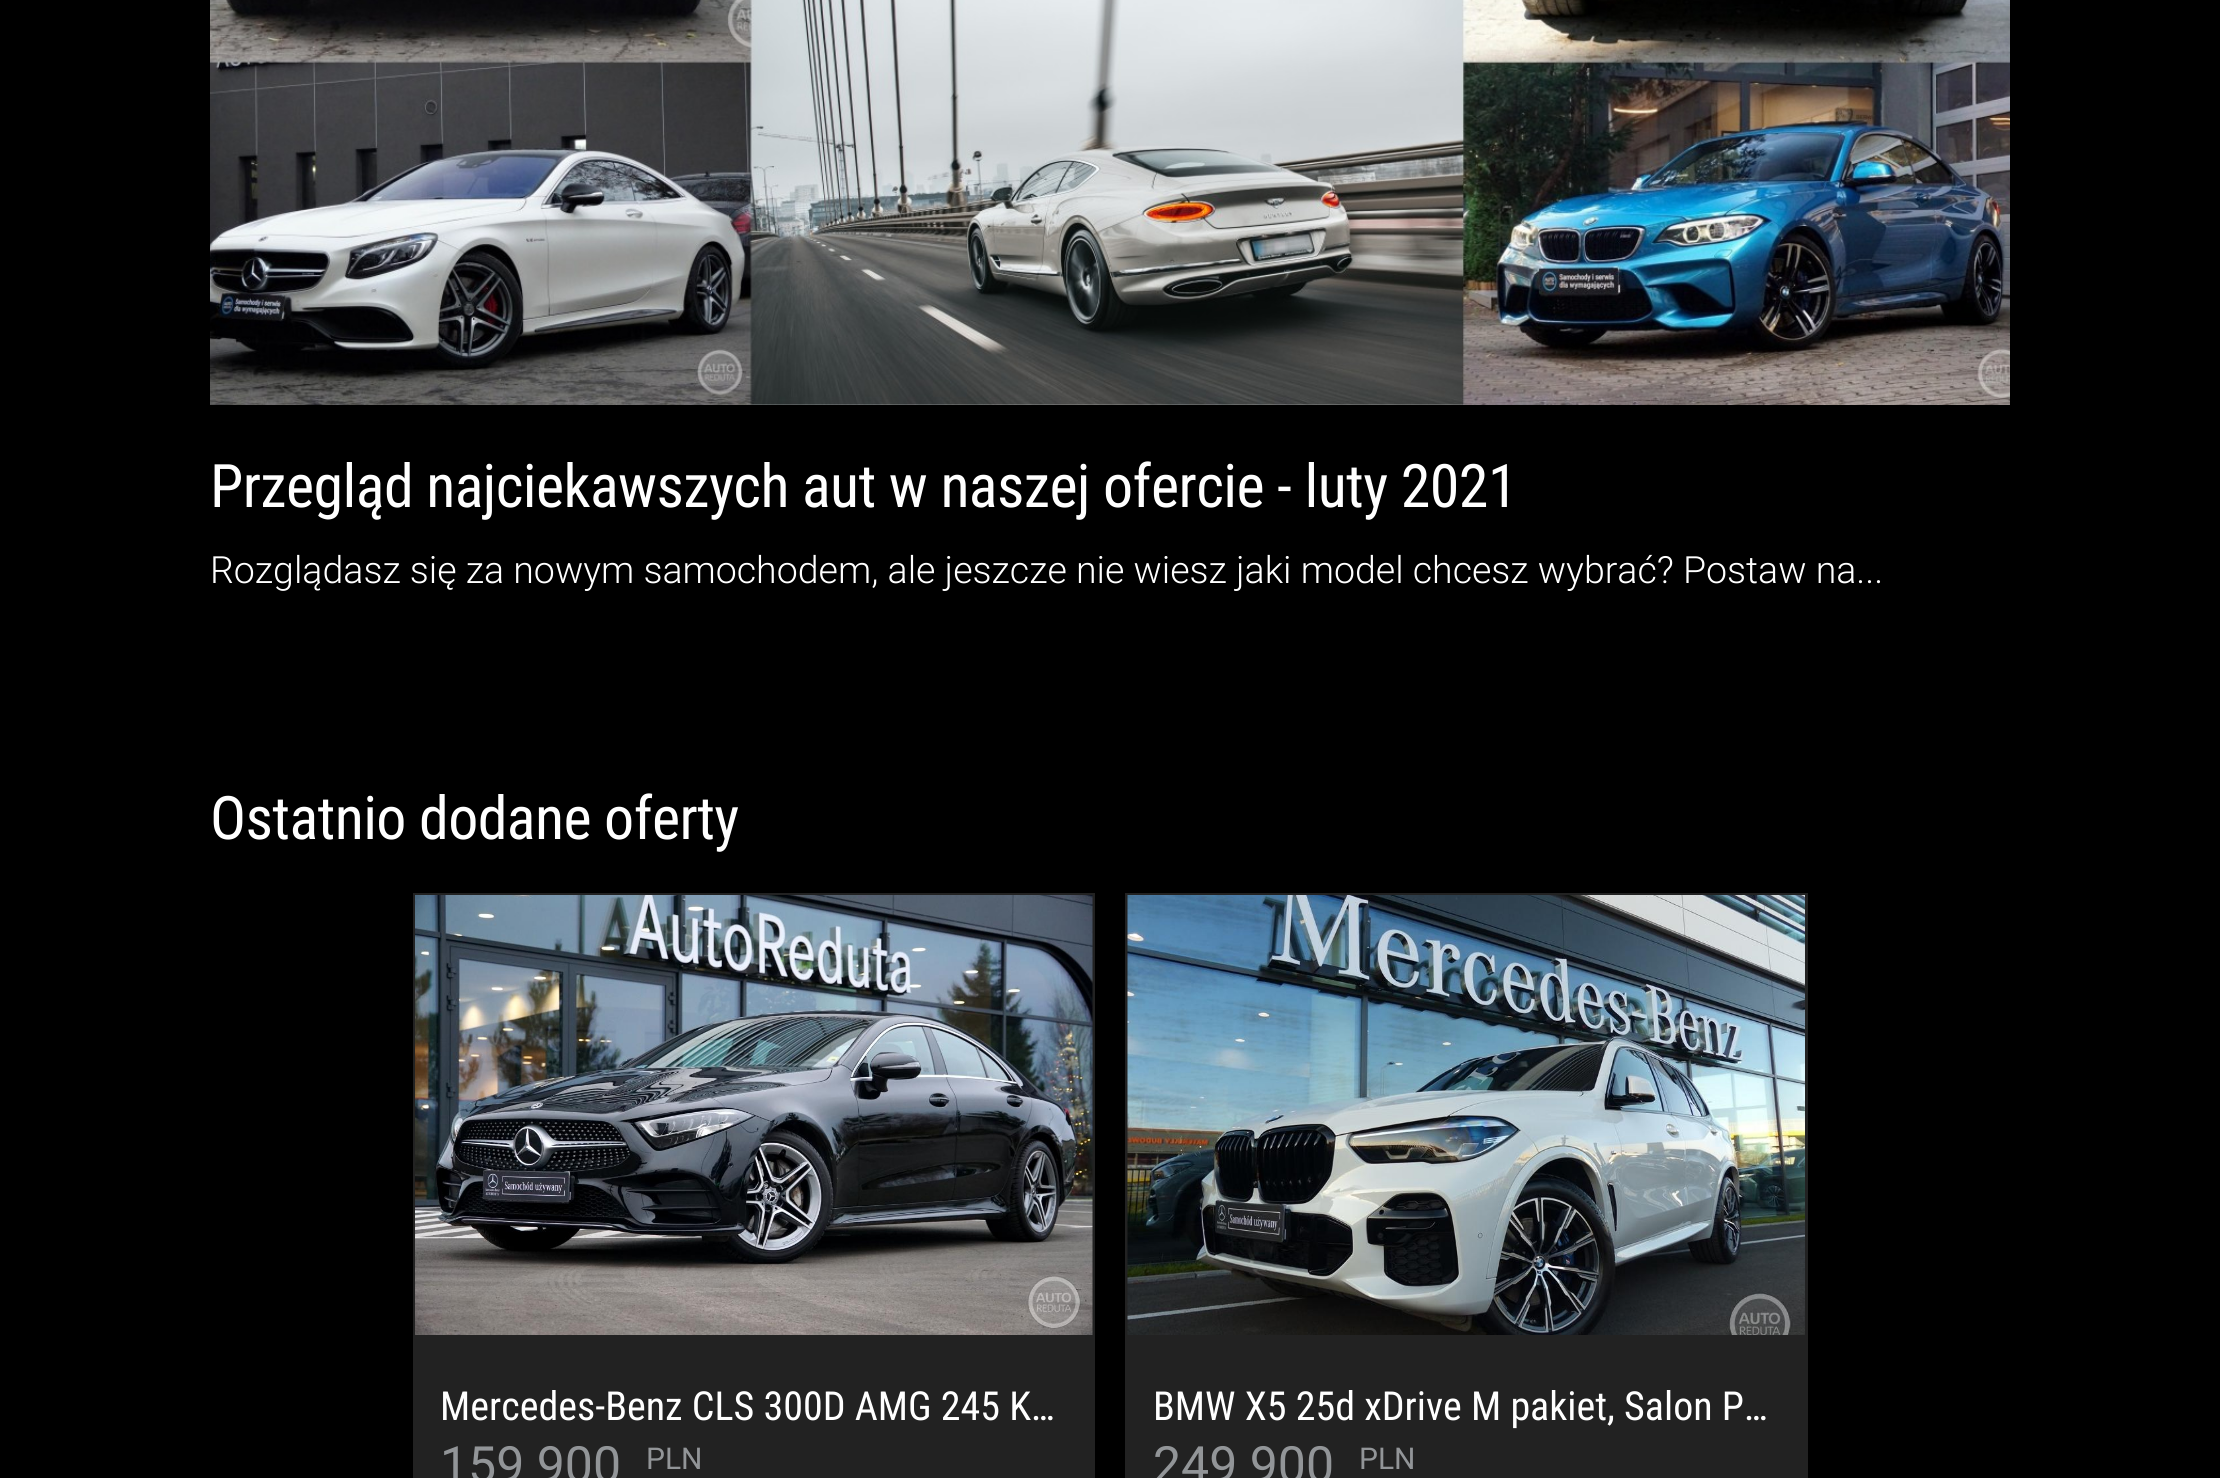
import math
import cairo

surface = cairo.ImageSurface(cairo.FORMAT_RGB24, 2220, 1478)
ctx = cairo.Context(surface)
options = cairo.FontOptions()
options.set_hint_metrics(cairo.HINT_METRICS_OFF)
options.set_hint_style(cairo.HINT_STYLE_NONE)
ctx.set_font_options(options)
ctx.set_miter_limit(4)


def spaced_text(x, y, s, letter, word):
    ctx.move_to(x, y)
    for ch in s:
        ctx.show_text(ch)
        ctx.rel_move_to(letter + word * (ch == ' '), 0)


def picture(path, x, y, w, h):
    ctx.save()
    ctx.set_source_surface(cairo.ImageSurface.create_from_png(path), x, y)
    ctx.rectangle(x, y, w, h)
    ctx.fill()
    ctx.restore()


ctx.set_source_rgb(0, 0, 0)
ctx.paint()
picture("img1.png", 210, 0, 1800, 405)
ctx.select_font_face("Roboto Condensed")
ctx.set_font_size(60)
ctx.set_source_rgb(1, 1, 1)
spaced_text(210, 507, "Przegląd najciekawszych aut w naszej ofercie - luty 2021", -0.6, 0)
ctx.select_font_face("Roboto Light")
ctx.set_font_size(37.5)
ctx.move_to(210, 583)
ctx.show_text("Rozglądasz się za nowym samochodem, ale jeszcze nie wiesz jaki model chcesz wybrać? Postaw na...")
ctx.select_font_face("Roboto Condensed")
ctx.set_font_size(60)
spaced_text(210, 839, "Ostatnio dodane oferty", -0.6, 0)
ctx.set_source_rgb(0.133, 0.133, 0.133)
ctx.rectangle(413, 893, 682, 585)
ctx.fill()
picture("img2.png", 415, 895, 678, 440)
ctx.set_font_size(40)
ctx.set_source_rgb(1, 1, 1)
ctx.move_to(440, 1420)
ctx.show_text("Mercedes-Benz CLS 300D AMG 245 K…")
ctx.select_font_face("Roboto")
ctx.set_font_size(50)
ctx.set_source_rgb(0.573, 0.584, 0.596)
ctx.move_to(440, 1482)
ctx.show_text("159 900")
ctx.set_font_size(30)
ctx.move_to(646, 1469)
ctx.show_text("PLN")
ctx.set_source_rgb(0.133, 0.133, 0.133)
ctx.rectangle(1125, 893, 683, 585)
ctx.fill()
picture("img3.png", 1127, 895, 678, 440)
ctx.select_font_face("Roboto Condensed")
ctx.set_font_size(40)
ctx.set_source_rgb(1, 1, 1)
ctx.move_to(1153, 1420)
ctx.show_text("BMW X5 25d xDrive M pakiet, Salon P…")
ctx.select_font_face("Roboto")
ctx.set_font_size(50)
ctx.set_source_rgb(0.573, 0.584, 0.596)
ctx.move_to(1153, 1482)
ctx.show_text("249 900")
ctx.set_font_size(30)
ctx.move_to(1359, 1469)
ctx.show_text("PLN")
surface.write_to_png("page.png")
